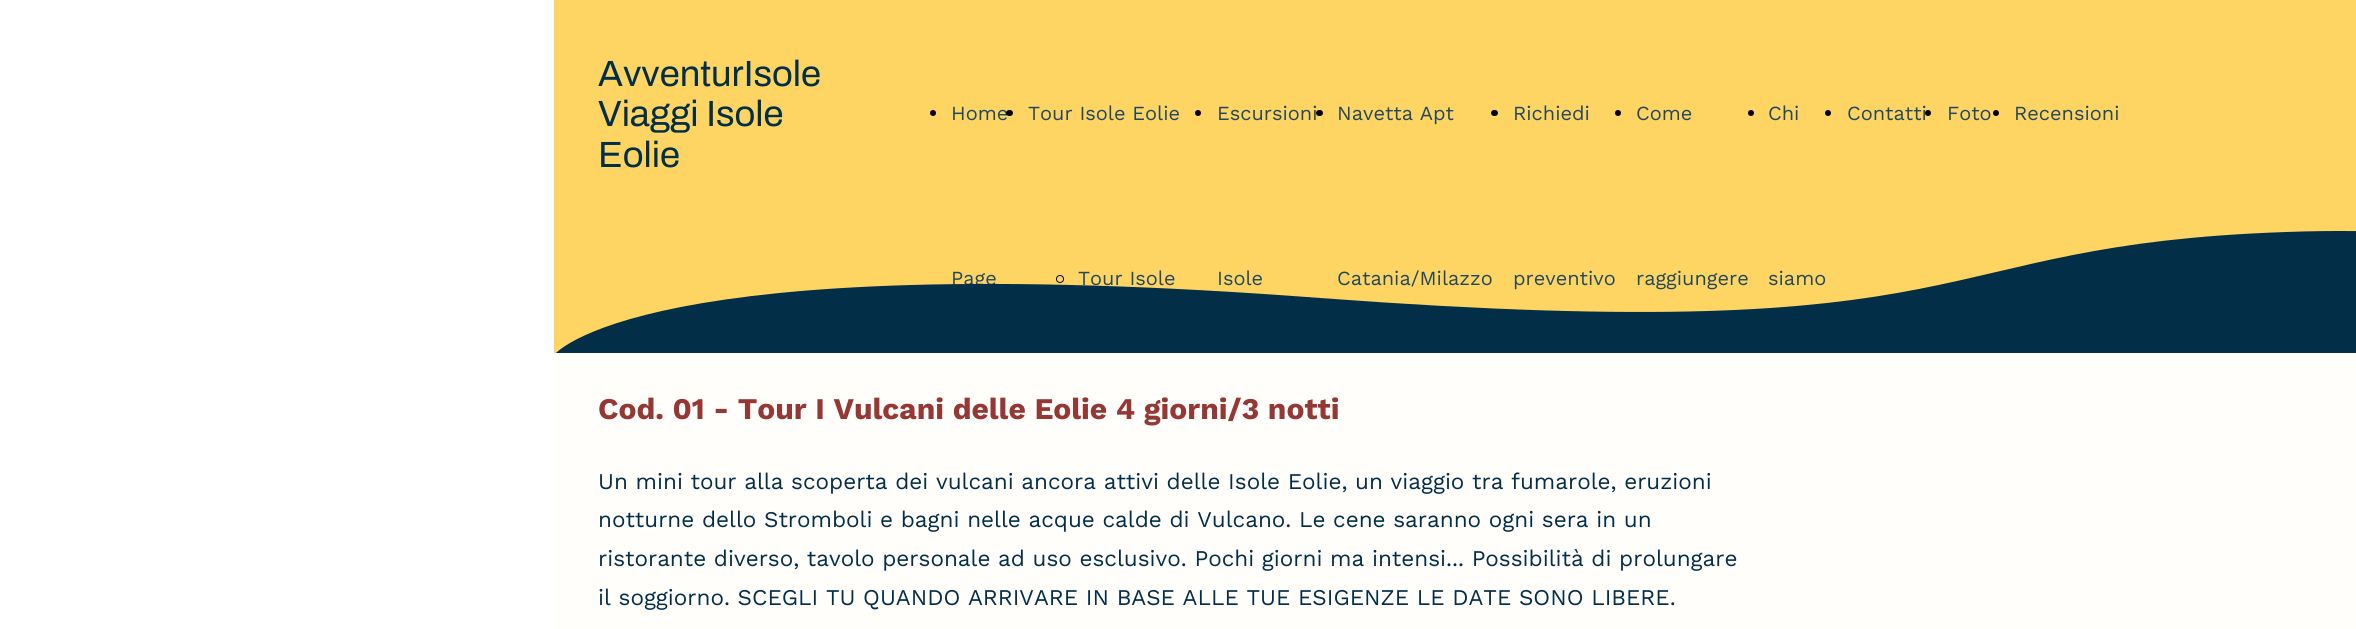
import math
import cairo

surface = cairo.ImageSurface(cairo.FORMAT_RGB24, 2356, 629)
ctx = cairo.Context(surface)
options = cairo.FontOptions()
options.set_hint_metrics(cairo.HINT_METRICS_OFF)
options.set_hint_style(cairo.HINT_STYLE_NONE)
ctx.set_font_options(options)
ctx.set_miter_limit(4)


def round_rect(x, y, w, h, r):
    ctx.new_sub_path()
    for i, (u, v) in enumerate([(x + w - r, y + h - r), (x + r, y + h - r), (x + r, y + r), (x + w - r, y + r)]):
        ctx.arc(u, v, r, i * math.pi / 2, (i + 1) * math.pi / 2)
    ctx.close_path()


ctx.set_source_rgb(1, 1, 1)
ctx.paint()
ctx.set_source_rgb(0.996, 0.835, 0.384)
ctx.rectangle(554, 0, 1802, 353)
ctx.fill()
ctx.select_font_face("Archivo")
ctx.set_font_size(36.5)
ctx.set_source_rgb(0.012, 0.18, 0.278)
ctx.move_to(598, 86)
ctx.show_text("AvventurIsole")
ctx.move_to(598, 126)
ctx.show_text("Viaggi Isole")
ctx.move_to(598, 167)
ctx.show_text("Eolie")
ctx.set_source_rgb(0, 0, 0)
ctx.new_path()
ctx.arc(933, 113, 3, 0, 2 * math.pi)
ctx.fill()
ctx.select_font_face("Work Sans")
ctx.set_font_size(20)
ctx.set_source_rgb(0.137, 0.282, 0.369)
ctx.move_to(951, 120)
ctx.show_text("Home")
ctx.move_to(951, 285)
ctx.show_text("Page")
ctx.set_source_rgb(0, 0, 0)
round_rect(1006, 110, 7, 6, 3)
ctx.fill()
ctx.set_source_rgb(0.137, 0.282, 0.369)
ctx.move_to(1028, 120)
ctx.show_text("Tour Isole Eolie")
ctx.new_path()
ctx.arc(1060, 279, 3.5, 0, 2 * math.pi)
ctx.set_source_rgb(0, 0, 0)
ctx.set_line_width(1)
ctx.stroke()
ctx.set_source_rgb(0.137, 0.282, 0.369)
ctx.move_to(1078, 285)
ctx.show_text("Tour Isole")
ctx.set_source_rgb(0, 0, 0)
ctx.new_path()
ctx.arc(1198, 113, 3, 0, 2 * math.pi)
ctx.fill()
ctx.set_source_rgb(0.137, 0.282, 0.369)
ctx.move_to(1217, 120)
ctx.show_text("Escursioni")
ctx.move_to(1217, 285)
ctx.show_text("Isole")
ctx.set_source_rgb(0, 0, 0)
round_rect(1316, 110, 7, 6, 3)
ctx.fill()
ctx.set_source_rgb(0.137, 0.282, 0.369)
ctx.move_to(1337, 120)
ctx.show_text("Navetta Apt")
ctx.move_to(1337, 285)
ctx.show_text("Catania/Milazzo")
ctx.set_source_rgb(0, 0, 0)
round_rect(1491, 110, 7, 6, 3)
ctx.fill()
ctx.set_source_rgb(0.137, 0.282, 0.369)
ctx.move_to(1513, 120)
ctx.show_text("Richiedi")
ctx.move_to(1513, 285)
ctx.show_text("preventivo")
ctx.set_source_rgb(0, 0, 0)
ctx.new_path()
ctx.arc(1618, 113, 3, 0, 2 * math.pi)
ctx.fill()
ctx.set_source_rgb(0.137, 0.282, 0.369)
ctx.move_to(1636, 120)
ctx.show_text("Come")
ctx.move_to(1636, 285)
ctx.show_text("raggiungere")
ctx.set_source_rgb(0, 0, 0)
ctx.new_path()
ctx.arc(1751, 113, 3, 0, 2 * math.pi)
ctx.fill()
ctx.set_source_rgb(0.137, 0.282, 0.369)
ctx.move_to(1768, 120)
ctx.show_text("Chi")
ctx.move_to(1768, 285)
ctx.show_text("siamo")
ctx.set_source_rgb(0, 0, 0)
ctx.new_path()
ctx.arc(1828, 113, 3, 0, 2 * math.pi)
ctx.fill()
ctx.set_source_rgb(0.137, 0.282, 0.369)
ctx.move_to(1847, 120)
ctx.show_text("Contatti")
ctx.set_source_rgb(0, 0, 0)
ctx.new_path()
ctx.arc(1928, 113, 3, 0, 2 * math.pi)
ctx.fill()
ctx.set_source_rgb(0.137, 0.282, 0.369)
ctx.move_to(1947, 120)
ctx.show_text("Foto")
ctx.set_source_rgb(0, 0, 0)
ctx.new_path()
ctx.arc(1996, 113, 3, 0, 2 * math.pi)
ctx.fill()
ctx.set_source_rgb(0.137, 0.282, 0.369)
ctx.move_to(2014, 120)
ctx.show_text("Recensioni")
ctx.set_source_rgb(0.012, 0.18, 0.278)
ctx.new_path()
ctx.move_to(554, 355)
ctx.line_to(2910, 355)
ctx.curve_to(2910, 355, 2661, 218, 2286, 232)
ctx.curve_to(1911, 245, 2004, 349, 1320, 298)
ctx.curve_to(637, 246, 554, 355, 554, 355)
ctx.close_path()
ctx.fill()
ctx.set_source_rgb(1, 0.996, 0.984)
ctx.rectangle(554, 353, 1802, 276)
ctx.fill()
ctx.select_font_face("Work Sans", cairo.FONT_SLANT_NORMAL, cairo.FONT_WEIGHT_BOLD)
ctx.set_font_size(30)
ctx.set_source_rgb(0.584, 0.216, 0.204)
ctx.move_to(598, 419)
ctx.show_text("Cod. 01 - Tour I Vulcani delle Eolie 4 giorni/3 notti")
ctx.select_font_face("Work Sans")
ctx.set_font_size(22.5)
ctx.set_source_rgb(0.012, 0.18, 0.278)
ctx.move_to(598, 489)
ctx.show_text("Un mini tour alla scoperta dei vulcani ancora attivi delle Isole Eolie, un viaggio tra fumarole, eruzioni")
ctx.move_to(598, 527)
ctx.show_text("notturne dello Stromboli e bagni nelle acque calde di Vulcano. Le cene saranno ogni sera in un")
ctx.move_to(598, 566)
ctx.show_text("ristorante diverso, tavolo personale ad uso esclusivo. Pochi giorni ma intensi... Possibilità di prolungare")
ctx.move_to(598, 605)
ctx.show_text("il soggiorno. SCEGLI TU QUANDO ARRIVARE IN BASE ALLE TUE ESIGENZE LE DATE SONO LIBERE.")
surface.write_to_png("page.png")
